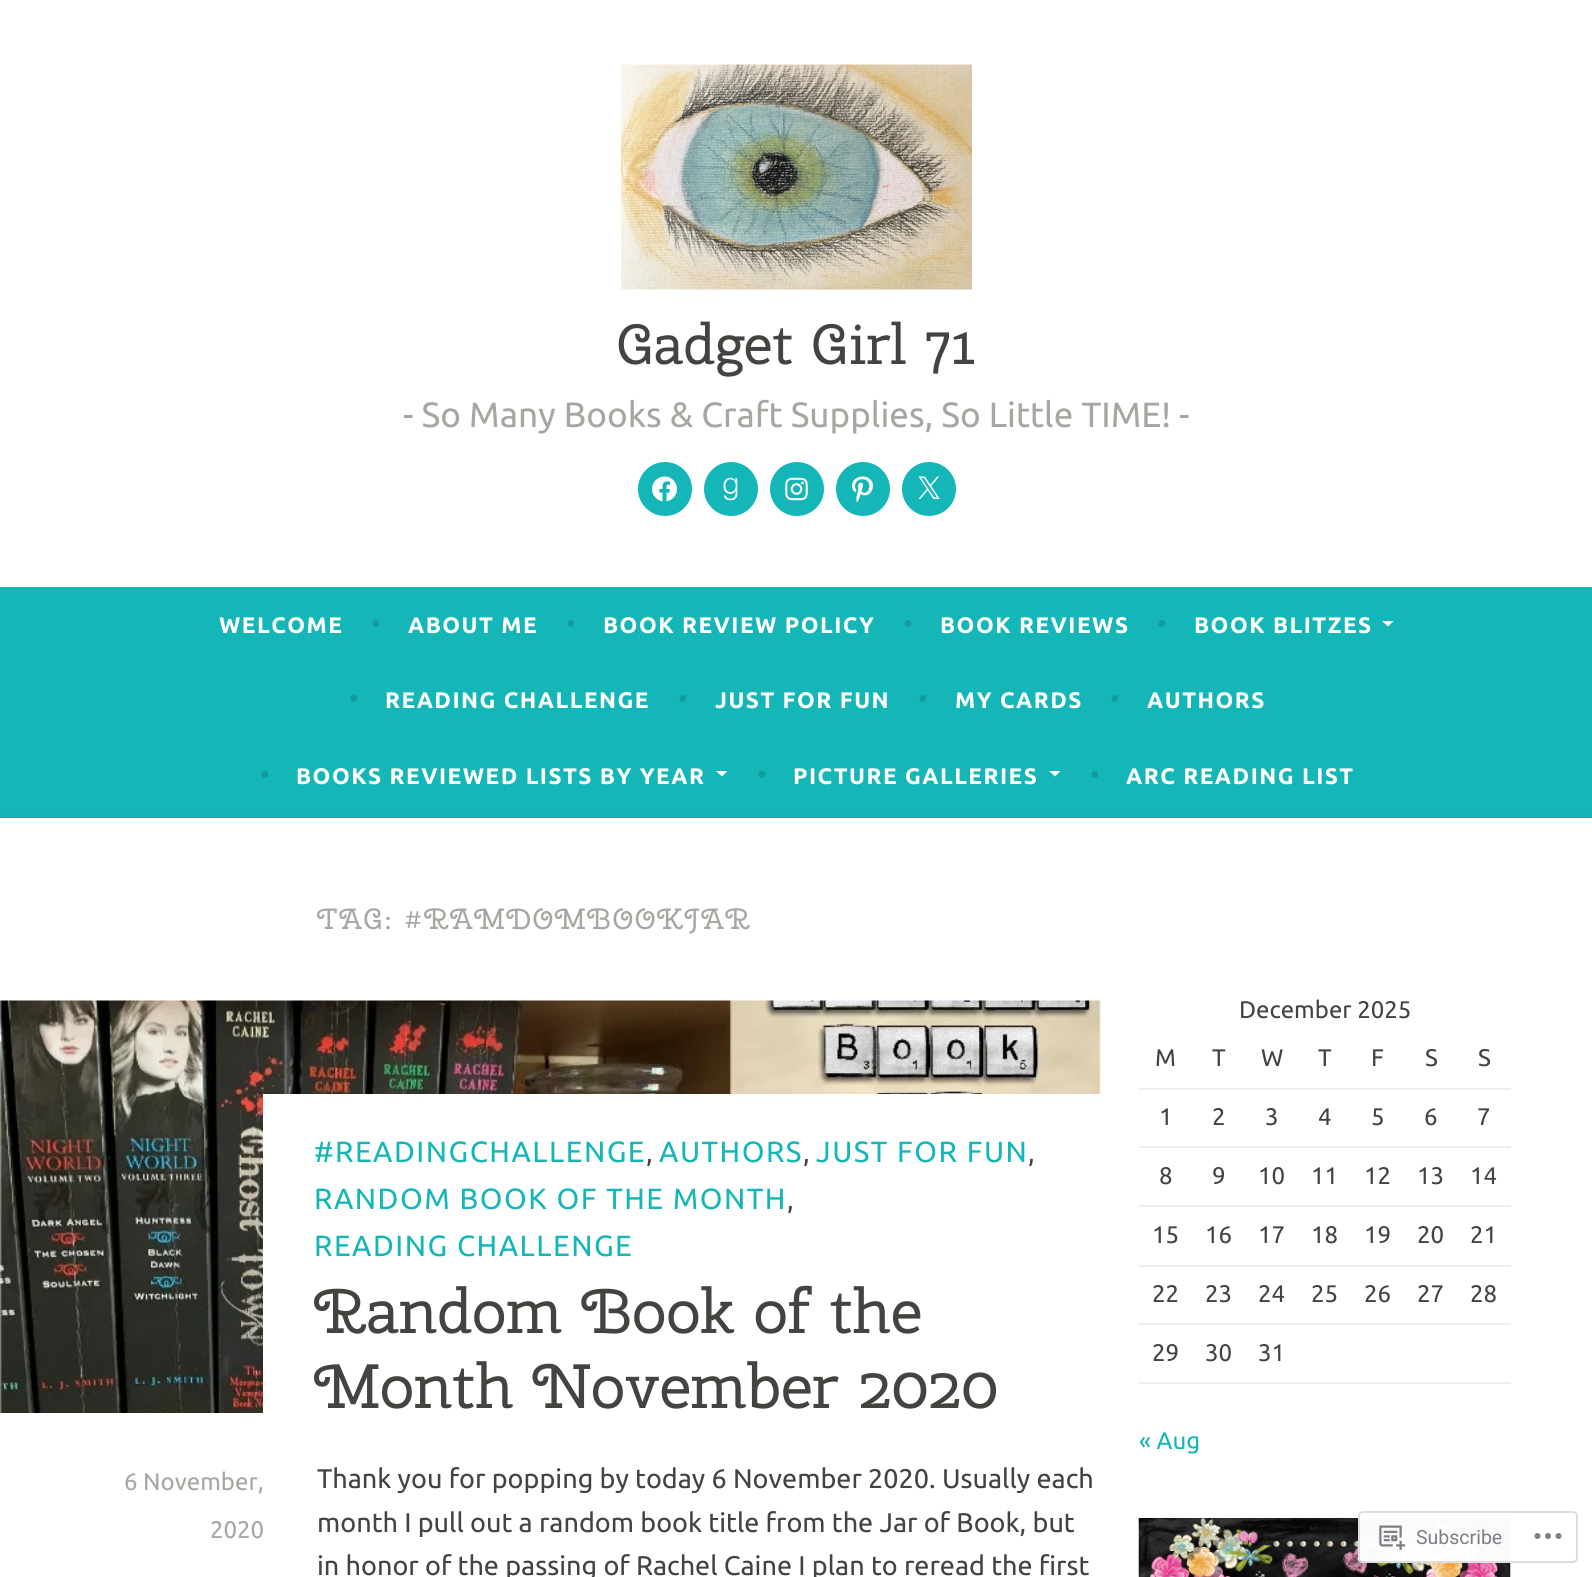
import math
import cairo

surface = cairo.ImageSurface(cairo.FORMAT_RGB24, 1592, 1577)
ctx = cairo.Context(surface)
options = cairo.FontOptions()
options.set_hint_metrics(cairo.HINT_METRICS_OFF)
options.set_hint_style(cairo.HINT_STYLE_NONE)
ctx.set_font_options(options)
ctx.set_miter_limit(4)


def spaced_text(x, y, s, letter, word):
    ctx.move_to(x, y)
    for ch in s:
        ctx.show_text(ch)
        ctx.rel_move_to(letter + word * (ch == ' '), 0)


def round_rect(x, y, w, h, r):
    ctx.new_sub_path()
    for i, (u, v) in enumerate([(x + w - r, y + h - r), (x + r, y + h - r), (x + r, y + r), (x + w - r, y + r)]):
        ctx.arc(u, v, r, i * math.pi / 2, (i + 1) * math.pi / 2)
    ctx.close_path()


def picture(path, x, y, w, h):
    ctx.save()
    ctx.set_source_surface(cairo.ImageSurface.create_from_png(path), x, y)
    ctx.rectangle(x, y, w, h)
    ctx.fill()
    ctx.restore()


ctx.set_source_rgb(1, 1, 1)
ctx.paint()
picture("img1.png", 621, 64, 351, 226)
ctx.select_font_face("Cherry Swash")
ctx.set_font_size(56.5)
ctx.set_source_rgb(0.267, 0.263, 0.251)
ctx.move_to(616, 364)
ctx.show_text("Gadget Girl 71")
ctx.select_font_face("Ubuntu")
ctx.set_font_size(35.1)
ctx.set_source_rgb(0.659, 0.651, 0.631)
ctx.move_to(403, 427)
ctx.show_text("- So Many Books & Craft Supplies, So Little TIME! -")
ctx.set_source_rgb(0.082, 0.714, 0.722)
ctx.new_path()
ctx.arc(665, 489, 27, 0, 2 * math.pi)
ctx.fill()
picture("img2.png", 652, 476, 25, 26)
ctx.arc(731, 489, 27, 0, 2 * math.pi)
ctx.fill()
picture("img3.png", 723, 477, 15, 24)
ctx.arc(797, 489, 27, 0, 2 * math.pi)
ctx.fill()
picture("img4.png", 785, 477, 23, 24)
ctx.arc(863, 489, 27, 0, 2 * math.pi)
ctx.fill()
picture("img5.png", 852, 476, 21, 27)
ctx.arc(929, 489, 27, 0, 2 * math.pi)
ctx.fill()
picture("img6.png", 918, 476, 22, 23)
ctx.rectangle(0, 587, 1592, 228)
ctx.fill()
ctx.set_source_rgb(0.078, 0.694, 0.698)
ctx.rectangle(0, 815, 1592, 3)
ctx.fill()
ctx.select_font_face("Ubuntu", cairo.FONT_SLANT_NORMAL, cairo.FONT_WEIGHT_BOLD)
ctx.set_font_size(22.5)
ctx.set_source_rgb(1, 1, 1)
spaced_text(219, 633, "WELCOME", 1.5, 0)
ctx.select_font_face("Ubuntu")
ctx.set_font_size(27)
ctx.set_source_rgb(0.071, 0.608, 0.612)
ctx.move_to(371, 633)
ctx.show_text("•")
ctx.select_font_face("Ubuntu", cairo.FONT_SLANT_NORMAL, cairo.FONT_WEIGHT_BOLD)
ctx.set_font_size(22.5)
ctx.set_source_rgb(1, 1, 1)
spaced_text(408, 633, "ABOUT ME", 1.5, 0)
ctx.select_font_face("Ubuntu")
ctx.set_font_size(27)
ctx.set_source_rgb(0.071, 0.608, 0.612)
ctx.move_to(566, 633)
ctx.show_text("•")
ctx.select_font_face("Ubuntu", cairo.FONT_SLANT_NORMAL, cairo.FONT_WEIGHT_BOLD)
ctx.set_font_size(22.5)
ctx.set_source_rgb(1, 1, 1)
spaced_text(603, 633, "BOOK REVIEW POLICY", 1.5, 0)
ctx.select_font_face("Ubuntu")
ctx.set_font_size(27)
ctx.set_source_rgb(0.071, 0.608, 0.612)
ctx.move_to(903, 633)
ctx.show_text("•")
ctx.select_font_face("Ubuntu", cairo.FONT_SLANT_NORMAL, cairo.FONT_WEIGHT_BOLD)
ctx.set_font_size(22.5)
ctx.set_source_rgb(1, 1, 1)
spaced_text(940, 633, "BOOK REVIEWS", 1.5, 0)
ctx.select_font_face("Ubuntu")
ctx.set_font_size(27)
ctx.set_source_rgb(0.071, 0.608, 0.612)
ctx.move_to(1157, 633)
ctx.show_text("•")
ctx.select_font_face("Ubuntu", cairo.FONT_SLANT_NORMAL, cairo.FONT_WEIGHT_BOLD)
ctx.set_font_size(22.5)
ctx.set_source_rgb(1, 1, 1)
spaced_text(1194, 633, "BOOK BLITZES", 1.5, 0)
ctx.new_path()
ctx.move_to(1382, 621)
ctx.line_to(1393.5, 621)
ctx.line_to(1388, 626.5)
ctx.close_path()
ctx.fill()
ctx.select_font_face("Ubuntu")
ctx.set_font_size(27)
ctx.set_source_rgb(0.071, 0.608, 0.612)
ctx.move_to(349, 708)
ctx.show_text("•")
ctx.select_font_face("Ubuntu", cairo.FONT_SLANT_NORMAL, cairo.FONT_WEIGHT_BOLD)
ctx.set_font_size(22.5)
ctx.set_source_rgb(1, 1, 1)
spaced_text(385, 708, "READING CHALLENGE", 1.5, 0)
ctx.select_font_face("Ubuntu")
ctx.set_font_size(27)
ctx.set_source_rgb(0.071, 0.608, 0.612)
ctx.move_to(678, 708)
ctx.show_text("•")
ctx.select_font_face("Ubuntu", cairo.FONT_SLANT_NORMAL, cairo.FONT_WEIGHT_BOLD)
ctx.set_font_size(22.5)
ctx.set_source_rgb(1, 1, 1)
spaced_text(715, 708, "JUST FOR FUN", 1.5, 0)
ctx.select_font_face("Ubuntu")
ctx.set_font_size(27)
ctx.set_source_rgb(0.071, 0.608, 0.612)
ctx.move_to(918, 708)
ctx.show_text("•")
ctx.select_font_face("Ubuntu", cairo.FONT_SLANT_NORMAL, cairo.FONT_WEIGHT_BOLD)
ctx.set_font_size(22.5)
ctx.set_source_rgb(1, 1, 1)
spaced_text(955, 708, "MY CARDS", 1.5, 0)
ctx.select_font_face("Ubuntu")
ctx.set_font_size(27)
ctx.set_source_rgb(0.071, 0.608, 0.612)
ctx.move_to(1110, 708)
ctx.show_text("•")
ctx.select_font_face("Ubuntu", cairo.FONT_SLANT_NORMAL, cairo.FONT_WEIGHT_BOLD)
ctx.set_font_size(22.5)
ctx.set_source_rgb(1, 1, 1)
spaced_text(1147, 708, "AUTHORS", 1.5, 0)
ctx.select_font_face("Ubuntu")
ctx.set_font_size(27)
ctx.set_source_rgb(0.071, 0.608, 0.612)
ctx.move_to(260, 784)
ctx.show_text("•")
ctx.select_font_face("Ubuntu", cairo.FONT_SLANT_NORMAL, cairo.FONT_WEIGHT_BOLD)
ctx.set_font_size(22.5)
ctx.set_source_rgb(1, 1, 1)
spaced_text(296, 784, "BOOKS REVIEWED LISTS BY YEAR", 1.5, 0)
ctx.new_path()
ctx.move_to(716, 771)
ctx.line_to(727.5, 771)
ctx.line_to(722, 776.5)
ctx.close_path()
ctx.fill()
ctx.select_font_face("Ubuntu")
ctx.set_font_size(27)
ctx.set_source_rgb(0.071, 0.608, 0.612)
ctx.move_to(757, 784)
ctx.show_text("•")
ctx.select_font_face("Ubuntu", cairo.FONT_SLANT_NORMAL, cairo.FONT_WEIGHT_BOLD)
ctx.set_font_size(22.5)
ctx.set_source_rgb(1, 1, 1)
spaced_text(793, 784, "PICTURE GALLERIES", 1.5, 0)
ctx.new_path()
ctx.move_to(1049, 771)
ctx.line_to(1060.5, 771)
ctx.line_to(1055, 776.5)
ctx.close_path()
ctx.fill()
ctx.select_font_face("Ubuntu")
ctx.set_font_size(27)
ctx.set_source_rgb(0.071, 0.608, 0.612)
ctx.move_to(1090, 784)
ctx.show_text("•")
ctx.select_font_face("Ubuntu", cairo.FONT_SLANT_NORMAL, cairo.FONT_WEIGHT_BOLD)
ctx.set_font_size(22.5)
ctx.set_source_rgb(1, 1, 1)
spaced_text(1126, 784, "ARC READING LIST", 1.5, 0)
ctx.select_font_face("Cherry Swash")
ctx.set_font_size(29.25)
ctx.set_source_rgb(0.659, 0.651, 0.631)
spaced_text(317, 929, "TAG: #RAMDOMBOOKJAR", 1.5, 0)
picture("img7.png", 0, 1000, 1101, 413)
ctx.set_source_rgb(1, 1, 1)
ctx.rectangle(263, 1094, 838, 319)
ctx.fill()
ctx.select_font_face("Ubuntu")
ctx.set_source_rgb(0.082, 0.714, 0.722)
spaced_text(314, 1162, "#READINGCHALLENGE", 1.5, 0)
ctx.set_font_size(27)
ctx.set_source_rgb(0.267, 0.263, 0.251)
ctx.move_to(646, 1162)
ctx.show_text(",")
ctx.set_font_size(29.25)
ctx.set_source_rgb(0.082, 0.714, 0.722)
spaced_text(659, 1162, "AUTHORS", 1.5, 0)
ctx.set_font_size(27)
ctx.set_source_rgb(0.267, 0.263, 0.251)
ctx.move_to(803, 1162)
ctx.show_text(",")
ctx.set_font_size(29.25)
ctx.set_source_rgb(0.082, 0.714, 0.722)
spaced_text(816, 1162, "JUST FOR FUN", 1.5, 0)
ctx.set_font_size(27)
ctx.set_source_rgb(0.267, 0.263, 0.251)
ctx.move_to(1028, 1162)
ctx.show_text(",")
ctx.set_font_size(29.25)
ctx.set_source_rgb(0.082, 0.714, 0.722)
spaced_text(314, 1209, "RANDOM BOOK OF THE MONTH", 1.5, 0)
ctx.set_font_size(27)
ctx.set_source_rgb(0.267, 0.263, 0.251)
ctx.move_to(787, 1209)
ctx.show_text(",")
ctx.set_font_size(29.25)
ctx.set_source_rgb(0.082, 0.714, 0.722)
spaced_text(314, 1256, "READING CHALLENGE", 1.5, 0)
ctx.select_font_face("Cherry Swash")
ctx.set_font_size(62.4)
ctx.set_source_rgb(0.267, 0.263, 0.251)
ctx.move_to(314, 1333)
ctx.show_text("Random Book of the")
ctx.move_to(314, 1408)
ctx.show_text("Month November 2020")
ctx.select_font_face("Ubuntu")
ctx.set_font_size(24)
ctx.set_source_rgb(0.659, 0.651, 0.631)
ctx.move_to(124, 1490)
ctx.show_text("6 November,")
ctx.move_to(210, 1538)
ctx.show_text("2020")
ctx.set_font_size(27)
ctx.set_source_rgb(0.267, 0.263, 0.251)
ctx.move_to(317, 1488)
ctx.show_text("Thank you for popping by today 6 November 2020. Usually each")
ctx.move_to(317, 1532)
ctx.show_text("month I pull out a random book title from the Jar of Book, but")
ctx.move_to(317, 1575)
ctx.show_text("in honor of the passing of Rachel Caine I plan to reread the first")
ctx.set_source_rgb(0.933, 0.933, 0.933)
ctx.rectangle(1139, 1382, 372, 2)
ctx.fill()
ctx.set_font_size(24)
ctx.set_source_rgb(0.267, 0.263, 0.251)
ctx.move_to(1239, 1018)
ctx.show_text("December 2025")
ctx.move_to(1155, 1066)
ctx.show_text("M")
ctx.move_to(1212, 1066)
ctx.show_text("T")
ctx.move_to(1261, 1066)
ctx.show_text("W")
ctx.move_to(1318, 1066)
ctx.show_text("T")
ctx.move_to(1371, 1066)
ctx.show_text("F")
ctx.move_to(1425, 1066)
ctx.show_text("S")
ctx.move_to(1478, 1066)
ctx.show_text("S")
ctx.set_source_rgb(0.933, 0.933, 0.933)
ctx.rectangle(1139, 1088, 372, 2)
ctx.fill()
ctx.set_source_rgb(0.267, 0.263, 0.251)
ctx.move_to(1159, 1125)
ctx.show_text("1")
ctx.move_to(1212, 1125)
ctx.show_text("2")
ctx.move_to(1265, 1125)
ctx.show_text("3")
ctx.move_to(1318, 1125)
ctx.show_text("4")
ctx.move_to(1371, 1125)
ctx.show_text("5")
ctx.move_to(1424, 1125)
ctx.show_text("6")
ctx.move_to(1477, 1125)
ctx.show_text("7")
ctx.set_source_rgb(0.933, 0.933, 0.933)
ctx.rectangle(1139, 1146, 372, 2)
ctx.fill()
ctx.set_source_rgb(0.267, 0.263, 0.251)
ctx.move_to(1159, 1184)
ctx.show_text("8")
ctx.move_to(1212, 1184)
ctx.show_text("9")
ctx.move_to(1258, 1184)
ctx.show_text("10")
ctx.move_to(1311, 1184)
ctx.show_text("11")
ctx.move_to(1364, 1184)
ctx.show_text("12")
ctx.move_to(1417, 1184)
ctx.show_text("13")
ctx.move_to(1470, 1184)
ctx.show_text("14")
ctx.set_source_rgb(0.933, 0.933, 0.933)
ctx.rectangle(1139, 1205, 372, 2)
ctx.fill()
ctx.set_source_rgb(0.267, 0.263, 0.251)
ctx.move_to(1152, 1243)
ctx.show_text("15")
ctx.move_to(1205, 1243)
ctx.show_text("16")
ctx.move_to(1258, 1243)
ctx.show_text("17")
ctx.move_to(1311, 1243)
ctx.show_text("18")
ctx.move_to(1364, 1243)
ctx.show_text("19")
ctx.move_to(1417, 1243)
ctx.show_text("20")
ctx.move_to(1470, 1243)
ctx.show_text("21")
ctx.set_source_rgb(0.933, 0.933, 0.933)
ctx.rectangle(1139, 1265, 372, 2)
ctx.fill()
ctx.set_source_rgb(0.267, 0.263, 0.251)
ctx.move_to(1152, 1302)
ctx.show_text("22")
ctx.move_to(1205, 1302)
ctx.show_text("23")
ctx.move_to(1258, 1302)
ctx.show_text("24")
ctx.move_to(1311, 1302)
ctx.show_text("25")
ctx.move_to(1364, 1302)
ctx.show_text("26")
ctx.move_to(1417, 1302)
ctx.show_text("27")
ctx.move_to(1470, 1302)
ctx.show_text("28")
ctx.set_source_rgb(0.933, 0.933, 0.933)
ctx.rectangle(1139, 1323, 372, 2)
ctx.fill()
ctx.set_source_rgb(0.267, 0.263, 0.251)
ctx.move_to(1152, 1361)
ctx.show_text("29")
ctx.move_to(1205, 1361)
ctx.show_text("30")
ctx.move_to(1258, 1361)
ctx.show_text("31")
ctx.set_source_rgb(0.082, 0.714, 0.722)
ctx.move_to(1139, 1449)
ctx.show_text("« Aug")
picture("img8.png", 1138, 1518, 373, 59)
ctx.set_source_rgba(1, 1, 1, 0.98)
round_rect(1358, 1511, 220, 52, 5)
ctx.fill()
round_rect(1359, 1512, 218, 50, 4)
ctx.set_source_rgba(0.863, 0.863, 0.871, 0.98)
ctx.stroke()
picture("img9.png", 1379, 1525, 27, 25)
ctx.select_font_face("Roboto")
ctx.set_font_size(19.5)
ctx.set_source_rgb(0.482, 0.498, 0.518)
ctx.move_to(1416, 1544)
ctx.show_text("Subscribe")
picture("img10.png", 1534, 1533, 28, 6)
surface.write_to_png("page.png")
